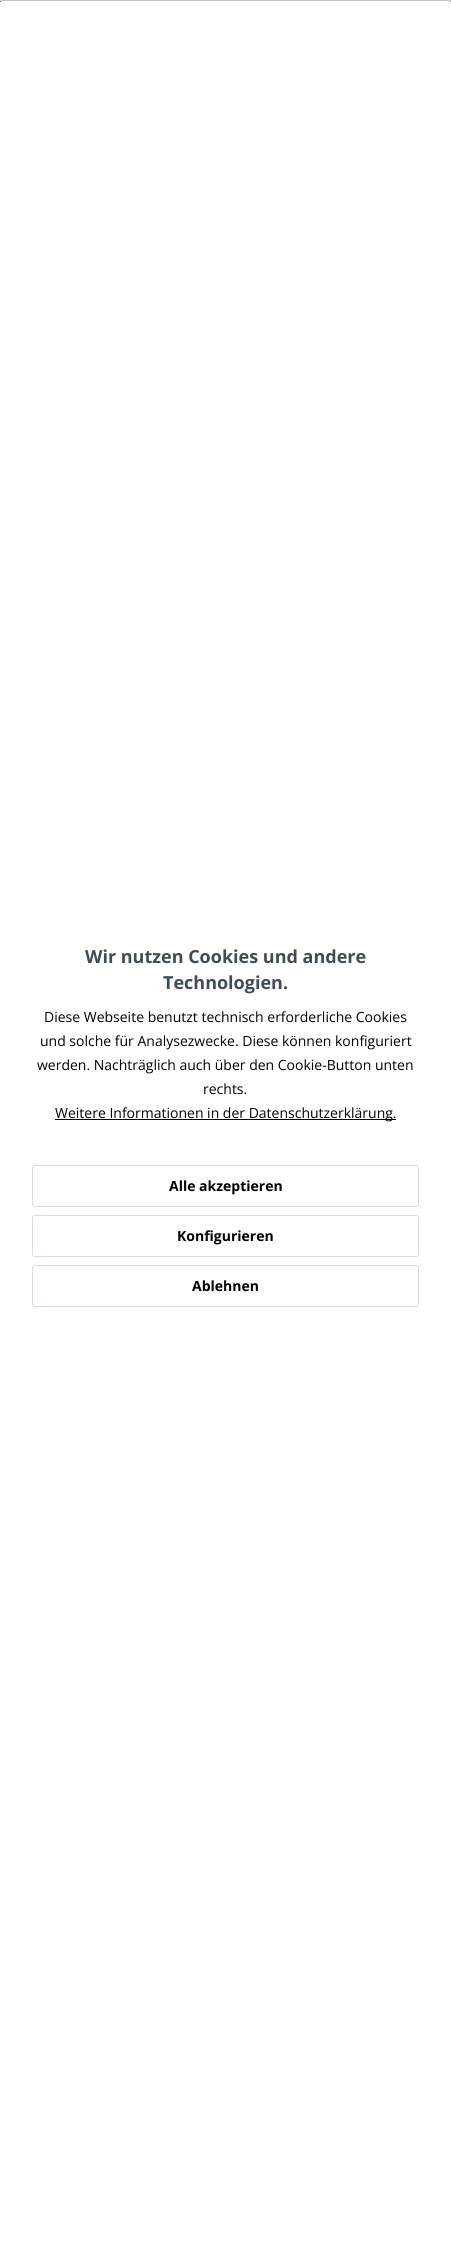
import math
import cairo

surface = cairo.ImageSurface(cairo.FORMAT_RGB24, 451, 2248)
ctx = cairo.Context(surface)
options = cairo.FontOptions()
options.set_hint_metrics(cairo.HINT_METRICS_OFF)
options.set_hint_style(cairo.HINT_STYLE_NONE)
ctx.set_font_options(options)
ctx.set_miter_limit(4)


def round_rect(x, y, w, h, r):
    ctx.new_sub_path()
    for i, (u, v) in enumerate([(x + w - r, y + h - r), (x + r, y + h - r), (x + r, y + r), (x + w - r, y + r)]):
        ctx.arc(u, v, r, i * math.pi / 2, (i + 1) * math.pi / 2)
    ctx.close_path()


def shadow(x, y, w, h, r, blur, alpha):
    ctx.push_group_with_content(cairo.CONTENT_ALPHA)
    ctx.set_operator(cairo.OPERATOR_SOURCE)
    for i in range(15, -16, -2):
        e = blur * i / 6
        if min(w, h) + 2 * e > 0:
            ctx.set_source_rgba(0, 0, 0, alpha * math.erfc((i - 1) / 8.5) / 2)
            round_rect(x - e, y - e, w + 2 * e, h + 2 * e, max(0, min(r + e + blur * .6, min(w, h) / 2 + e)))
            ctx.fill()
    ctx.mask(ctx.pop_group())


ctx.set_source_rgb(1, 1, 1)
ctx.paint()
ctx.set_source_rgb(0.961, 0, 0)
ctx.rectangle(0, 1, 451, 1)
ctx.fill()
ctx.set_source_rgb(0.855, 0.855, 0.898)
ctx.rectangle(0, 0, 451, 1)
ctx.fill()
ctx.set_source_rgb(0, 0, 0)
shadow(4, 5, 443, 2240, 0, 5, 0.6)
ctx.set_source_rgb(1, 1, 1)
round_rect(0, 1, 451, 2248, 2)
ctx.fill()
ctx.select_font_face("Open Sans", cairo.FONT_SLANT_NORMAL, cairo.FONT_WEIGHT_BOLD)
ctx.set_font_size(18)
ctx.set_source_rgb(0.247, 0.298, 0.345)
ctx.move_to(85, 963)
ctx.show_text("Wir nutzen Cookies und andere")
ctx.move_to(163, 989)
ctx.show_text("Technologien.")
ctx.select_font_face("Open Sans")
ctx.set_font_size(14)
ctx.set_source_rgb(0, 0, 0)
ctx.move_to(44, 1022)
ctx.show_text("Diese Webseite benutzt technisch erforderliche Cookies")
ctx.move_to(40, 1046)
ctx.show_text("und solche für Analysezwecke. Diese können konfiguriert")
ctx.move_to(37, 1070)
ctx.show_text("werden. Nachträglich auch über den Cookie-Button unten")
ctx.move_to(203, 1094)
ctx.show_text("rechts.")
ctx.rectangle(55, 1119, 341, 1)
ctx.fill()
ctx.move_to(55, 1118)
ctx.show_text("Weitere Informationen in der Datenschutzerklärung.")
round_rect(32.5, 1165.5, 386, 41, 2.5)
ctx.set_source_rgb(0.855, 0.855, 0.898)
ctx.set_line_width(1)
ctx.stroke()
ctx.select_font_face("Open Sans", cairo.FONT_SLANT_NORMAL, cairo.FONT_WEIGHT_BOLD)
ctx.set_source_rgb(0, 0, 0)
ctx.move_to(169, 1191)
ctx.show_text("Alle akzeptieren")
round_rect(32.5, 1215.5, 386, 41, 2.5)
ctx.set_source_rgb(0.855, 0.855, 0.898)
ctx.stroke()
ctx.set_source_rgb(0, 0, 0)
ctx.move_to(177, 1241)
ctx.show_text("Konfigurieren")
round_rect(32.5, 1265.5, 386, 41, 2.5)
ctx.set_source_rgb(0.855, 0.855, 0.898)
ctx.stroke()
ctx.set_source_rgb(0, 0, 0)
ctx.move_to(192, 1291)
ctx.show_text("Ablehnen")
surface.write_to_png("page.png")
